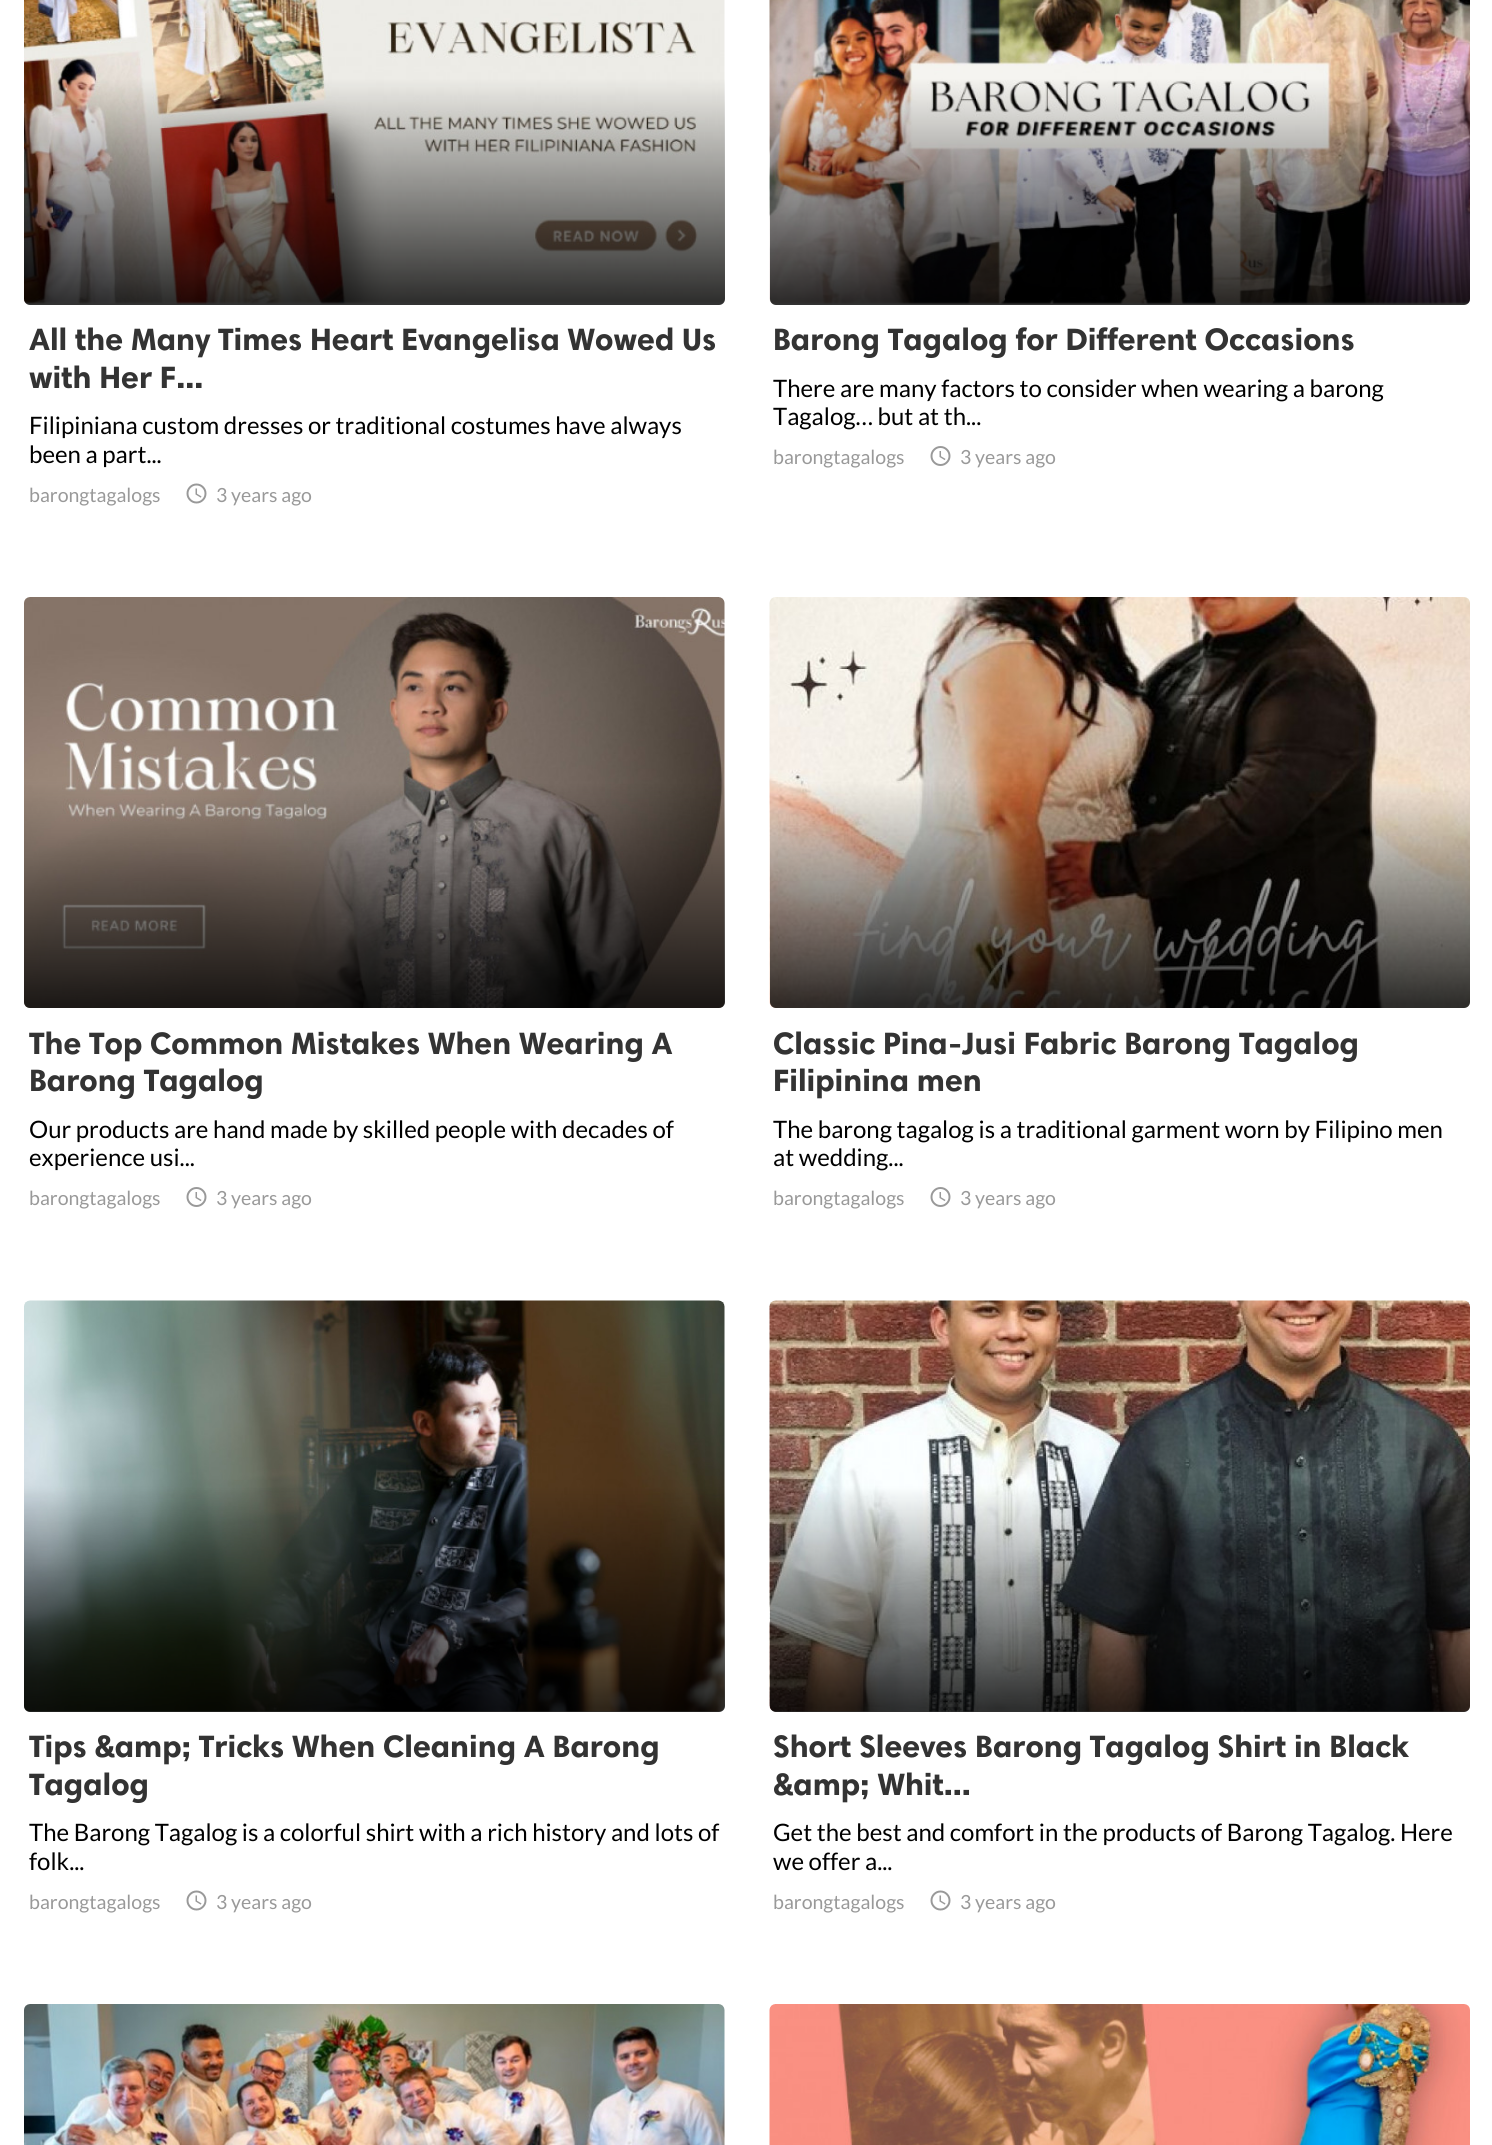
import math
import cairo

surface = cairo.ImageSurface(cairo.FORMAT_RGB24, 1492, 2145)
ctx = cairo.Context(surface)
options = cairo.FontOptions()
options.set_hint_metrics(cairo.HINT_METRICS_OFF)
options.set_hint_style(cairo.HINT_STYLE_NONE)
ctx.set_font_options(options)
ctx.set_miter_limit(4)


def round_rect(x, y, w, h, r):
    ctx.new_sub_path()
    for i, (u, v) in enumerate([(x + w - r, y + h - r), (x + r, y + h - r), (x + r, y + r), (x + w - r, y + r)]):
        ctx.arc(u, v, r, i * math.pi / 2, (i + 1) * math.pi / 2)
    ctx.close_path()


def picture(path, x, y, w, h):
    ctx.save()
    ctx.set_source_surface(cairo.ImageSurface.create_from_png(path), x, y)
    ctx.rectangle(x, y, w, h)
    ctx.fill()
    ctx.restore()


ctx.set_source_rgb(1, 1, 1)
ctx.paint()
picture("img1.png", 24, 0, 701, 305)
gradient = cairo.LinearGradient(374, -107, 374, 305)
gradient.add_color_stop_rgba(0.45, 0, 0, 0, 0)
gradient.add_color_stop_rgba(0.99, 0, 0, 0, 0.8)
gradient.add_color_stop_rgba(1, 0, 0, 0, 0.8)
ctx.set_source(gradient)
round_rect(24, -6, 701, 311, 6)
ctx.fill()
ctx.select_font_face("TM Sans", cairo.FONT_SLANT_NORMAL, cairo.FONT_WEIGHT_BOLD)
ctx.set_font_size(31.2)
ctx.set_source_rgb(0.2, 0.2, 0.2)
ctx.move_to(29, 350)
ctx.show_text("All the Many Times Heart Evangelisa Wowed Us")
ctx.move_to(29, 388)
ctx.show_text("with Her F...")
ctx.select_font_face("Lato")
ctx.set_font_size(24)
ctx.set_source_rgb(0, 0, 0)
ctx.move_to(29, 434)
ctx.show_text("Filipiniana custom dresses or traditional costumes have always")
ctx.move_to(29, 463)
ctx.show_text("been a part...")
ctx.set_font_size(19.5)
ctx.set_source_rgb(0.6, 0.6, 0.6)
ctx.move_to(29, 502)
ctx.show_text("barongtagalogs")
picture("img2.png", 186, 483, 21, 21)
ctx.move_to(216, 502)
ctx.show_text("3 years ago")
picture("img3.png", 769, 0, 701, 305)
gradient = cairo.LinearGradient(1120, -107, 1120, 305)
gradient.add_color_stop_rgba(0.45, 0, 0, 0, 0)
gradient.add_color_stop_rgba(0.99, 0, 0, 0, 0.8)
gradient.add_color_stop_rgba(1, 0, 0, 0, 0.8)
ctx.set_source(gradient)
round_rect(770, -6, 700, 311, 6)
ctx.fill()
ctx.select_font_face("TM Sans", cairo.FONT_SLANT_NORMAL, cairo.FONT_WEIGHT_BOLD)
ctx.set_font_size(31.2)
ctx.set_source_rgb(0.2, 0.2, 0.2)
ctx.move_to(773, 350)
ctx.show_text("Barong Tagalog for Different Occasions")
ctx.select_font_face("Lato")
ctx.set_font_size(24)
ctx.set_source_rgb(0, 0, 0)
ctx.move_to(773, 397)
ctx.show_text("There are many factors to consider when wearing a barong")
ctx.move_to(773, 425)
ctx.show_text("Tagalog… but at th...")
ctx.set_font_size(19.5)
ctx.set_source_rgb(0.6, 0.6, 0.6)
ctx.move_to(773, 464)
ctx.show_text("barongtagalogs")
picture("img4.png", 930, 446, 21, 20)
ctx.move_to(960, 464)
ctx.show_text("3 years ago")
picture("img5.png", 24, 597, 701, 411)
gradient = cairo.LinearGradient(374, 597, 374, 1008)
gradient.add_color_stop_rgba(0.45, 0, 0, 0, 0)
gradient.add_color_stop_rgba(0.99, 0, 0, 0, 0.8)
gradient.add_color_stop_rgba(1, 0, 0, 0, 0.8)
ctx.set_source(gradient)
round_rect(24, 597, 701, 411, 6)
ctx.fill()
ctx.select_font_face("TM Sans", cairo.FONT_SLANT_NORMAL, cairo.FONT_WEIGHT_BOLD)
ctx.set_font_size(31.2)
ctx.set_source_rgb(0.2, 0.2, 0.2)
ctx.move_to(29, 1054)
ctx.show_text("The Top Common Mistakes When Wearing A")
ctx.move_to(29, 1091)
ctx.show_text("Barong Tagalog")
ctx.select_font_face("Lato")
ctx.set_font_size(24)
ctx.set_source_rgb(0, 0, 0)
ctx.move_to(29, 1138)
ctx.show_text("Our products are hand made by skilled people with decades of")
ctx.move_to(29, 1166)
ctx.show_text("experience usi...")
ctx.set_font_size(19.5)
ctx.set_source_rgb(0.6, 0.6, 0.6)
ctx.move_to(29, 1205)
ctx.show_text("barongtagalogs")
picture("img4.png", 186, 1187, 21, 20)
ctx.move_to(216, 1205)
ctx.show_text("3 years ago")
picture("img6.png", 769, 597, 701, 411)
gradient = cairo.LinearGradient(1120, 597, 1120, 1008)
gradient.add_color_stop_rgba(0.45, 0, 0, 0, 0)
gradient.add_color_stop_rgba(0.99, 0, 0, 0, 0.8)
gradient.add_color_stop_rgba(1, 0, 0, 0, 0.8)
ctx.set_source(gradient)
round_rect(770, 597, 700, 411, 6)
ctx.fill()
ctx.select_font_face("TM Sans", cairo.FONT_SLANT_NORMAL, cairo.FONT_WEIGHT_BOLD)
ctx.set_font_size(31.2)
ctx.set_source_rgb(0.2, 0.2, 0.2)
ctx.move_to(773, 1054)
ctx.show_text("Classic Pina-Jusi Fabric Barong Tagalog")
ctx.move_to(773, 1091)
ctx.show_text("Filipinina men")
ctx.select_font_face("Lato")
ctx.set_font_size(24)
ctx.set_source_rgb(0, 0, 0)
ctx.move_to(773, 1138)
ctx.show_text("The barong tagalog is a traditional garment worn by Filipino men")
ctx.move_to(773, 1166)
ctx.show_text("at wedding...")
ctx.set_font_size(19.5)
ctx.set_source_rgb(0.6, 0.6, 0.6)
ctx.move_to(773, 1205)
ctx.show_text("barongtagalogs")
picture("img4.png", 930, 1187, 21, 20)
ctx.move_to(960, 1205)
ctx.show_text("3 years ago")
picture("img7.png", 24, 1300, 701, 412)
gradient = cairo.LinearGradient(374, 1301, 374, 1712)
gradient.add_color_stop_rgba(0.45, 0, 0, 0, 0)
gradient.add_color_stop_rgba(0.99, 0, 0, 0, 0.8)
gradient.add_color_stop_rgba(1, 0, 0, 0, 0.8)
ctx.set_source(gradient)
round_rect(24, 1301, 701, 411, 6)
ctx.fill()
ctx.select_font_face("TM Sans", cairo.FONT_SLANT_NORMAL, cairo.FONT_WEIGHT_BOLD)
ctx.set_font_size(31.2)
ctx.set_source_rgb(0.2, 0.2, 0.2)
ctx.move_to(29, 1757)
ctx.show_text("Tips &amp; Tricks When Cleaning A Barong")
ctx.move_to(29, 1795)
ctx.show_text("Tagalog")
ctx.select_font_face("Lato")
ctx.set_font_size(24)
ctx.set_source_rgb(0, 0, 0)
ctx.move_to(29, 1841)
ctx.show_text("The Barong Tagalog is a colorful shirt with a rich history and lots of")
ctx.move_to(29, 1870)
ctx.show_text("folk...")
ctx.set_font_size(19.5)
ctx.set_source_rgb(0.6, 0.6, 0.6)
ctx.move_to(29, 1909)
ctx.show_text("barongtagalogs")
picture("img2.png", 186, 1890, 21, 21)
ctx.move_to(216, 1909)
ctx.show_text("3 years ago")
picture("img8.png", 769, 1300, 701, 412)
gradient = cairo.LinearGradient(1120, 1301, 1120, 1712)
gradient.add_color_stop_rgba(0.45, 0, 0, 0, 0)
gradient.add_color_stop_rgba(0.99, 0, 0, 0, 0.8)
gradient.add_color_stop_rgba(1, 0, 0, 0, 0.8)
ctx.set_source(gradient)
round_rect(770, 1301, 700, 411, 6)
ctx.fill()
ctx.select_font_face("TM Sans", cairo.FONT_SLANT_NORMAL, cairo.FONT_WEIGHT_BOLD)
ctx.set_font_size(31.2)
ctx.set_source_rgb(0.2, 0.2, 0.2)
ctx.move_to(773, 1757)
ctx.show_text("Short Sleeves Barong Tagalog Shirt in Black")
ctx.move_to(773, 1795)
ctx.show_text("&amp; Whit...")
ctx.select_font_face("Lato")
ctx.set_font_size(24)
ctx.set_source_rgb(0, 0, 0)
ctx.move_to(773, 1841)
ctx.show_text("Get the best and comfort in the products of Barong Tagalog. Here")
ctx.move_to(773, 1870)
ctx.show_text("we offer a...")
ctx.set_font_size(19.5)
ctx.set_source_rgb(0.6, 0.6, 0.6)
ctx.move_to(773, 1909)
ctx.show_text("barongtagalogs")
picture("img2.png", 930, 1890, 21, 21)
ctx.move_to(960, 1909)
ctx.show_text("3 years ago")
picture("img9.png", 24, 2004, 701, 141)
picture("img10.png", 769, 2004, 701, 141)
surface.write_to_png("page.png")
